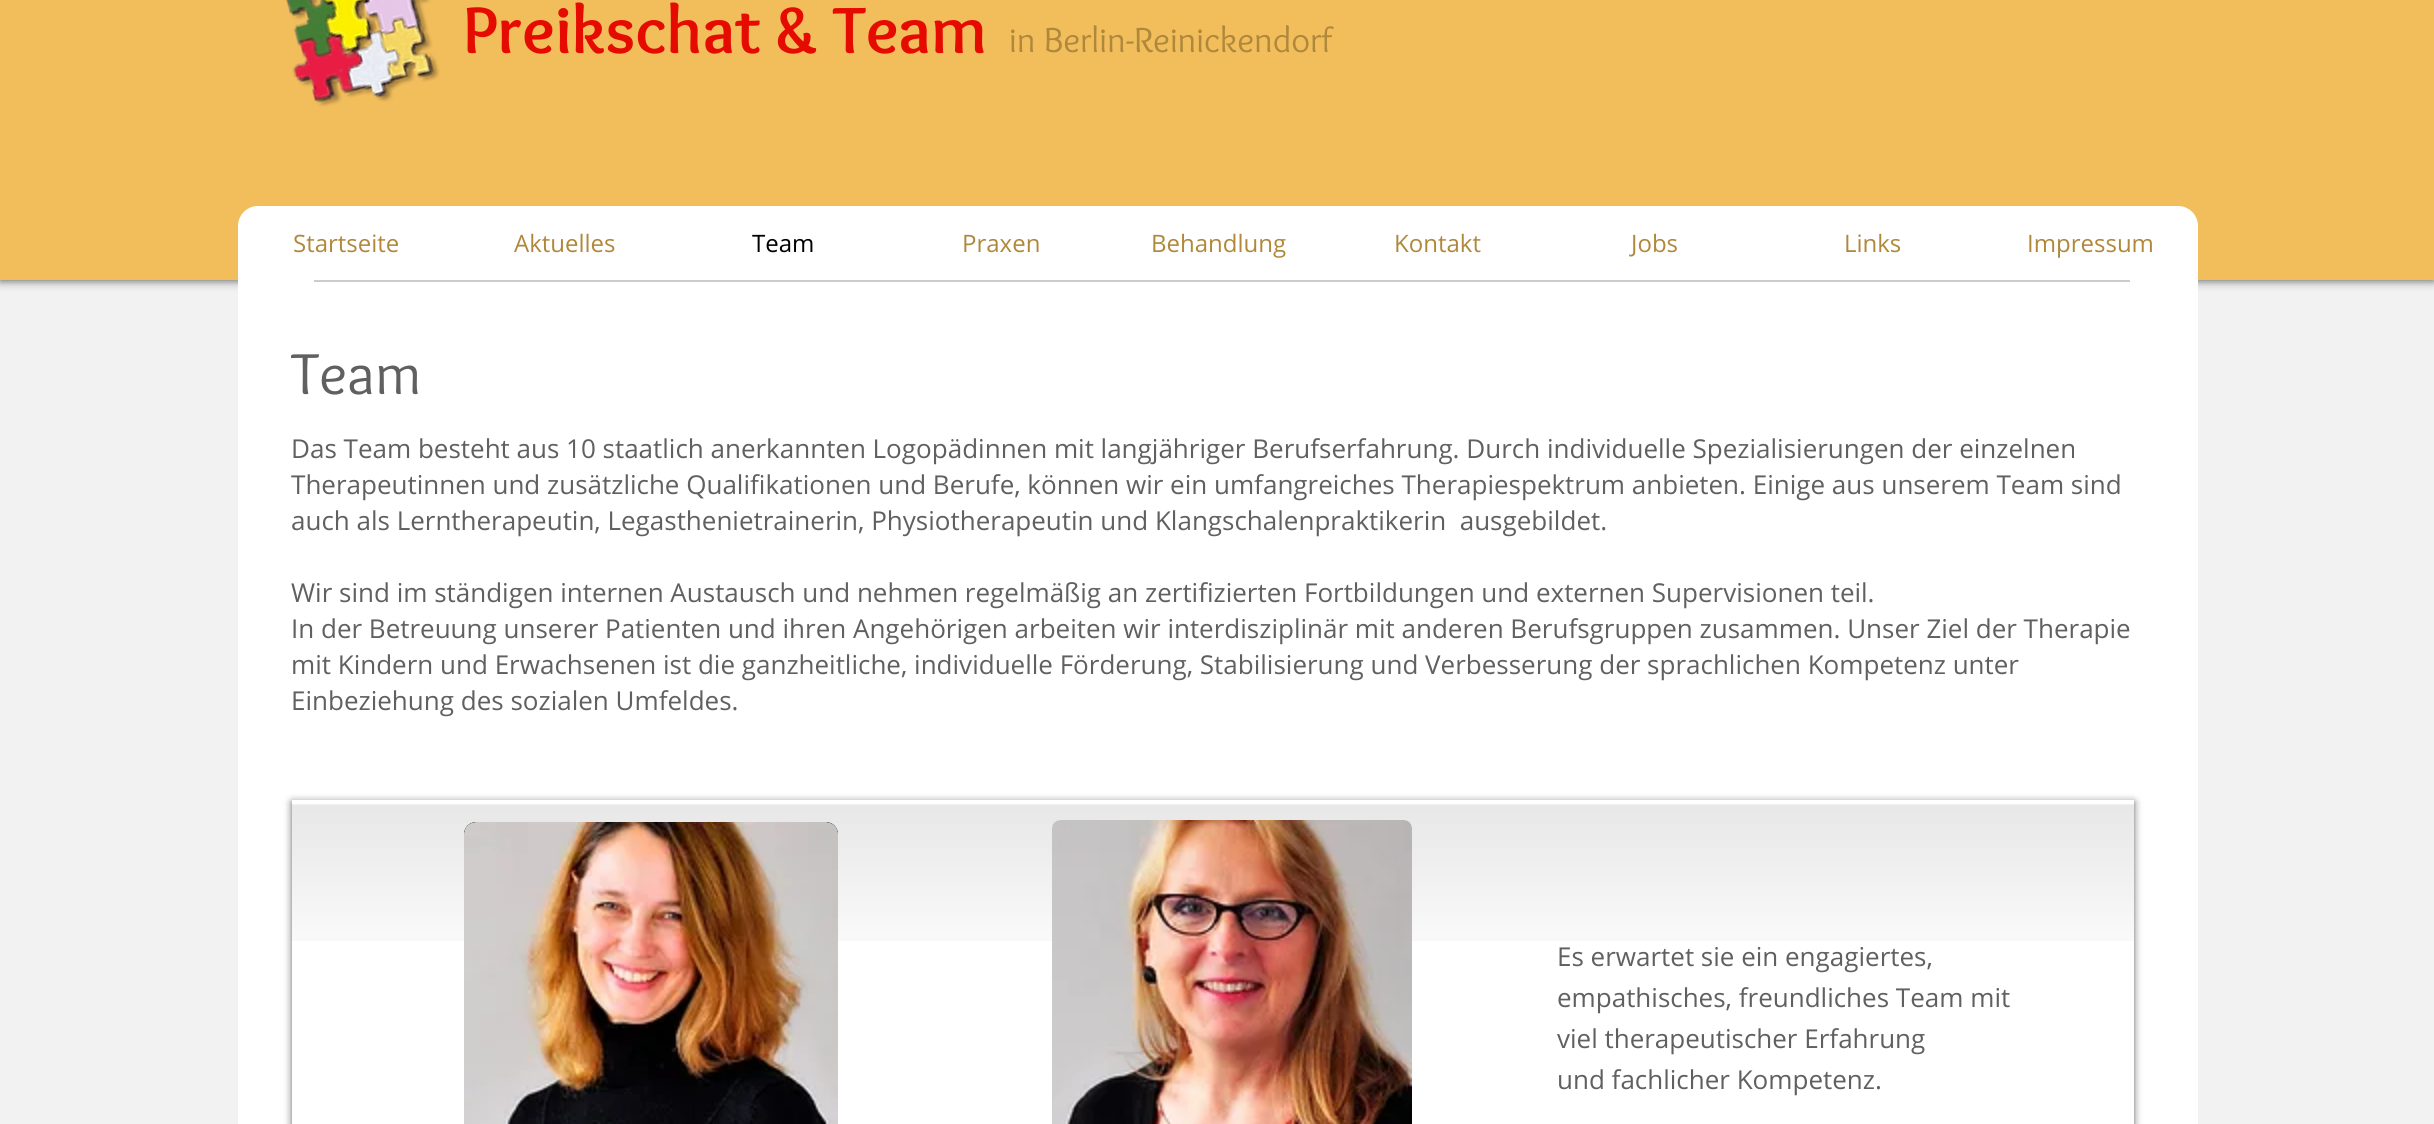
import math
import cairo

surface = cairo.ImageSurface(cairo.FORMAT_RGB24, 2434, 1124)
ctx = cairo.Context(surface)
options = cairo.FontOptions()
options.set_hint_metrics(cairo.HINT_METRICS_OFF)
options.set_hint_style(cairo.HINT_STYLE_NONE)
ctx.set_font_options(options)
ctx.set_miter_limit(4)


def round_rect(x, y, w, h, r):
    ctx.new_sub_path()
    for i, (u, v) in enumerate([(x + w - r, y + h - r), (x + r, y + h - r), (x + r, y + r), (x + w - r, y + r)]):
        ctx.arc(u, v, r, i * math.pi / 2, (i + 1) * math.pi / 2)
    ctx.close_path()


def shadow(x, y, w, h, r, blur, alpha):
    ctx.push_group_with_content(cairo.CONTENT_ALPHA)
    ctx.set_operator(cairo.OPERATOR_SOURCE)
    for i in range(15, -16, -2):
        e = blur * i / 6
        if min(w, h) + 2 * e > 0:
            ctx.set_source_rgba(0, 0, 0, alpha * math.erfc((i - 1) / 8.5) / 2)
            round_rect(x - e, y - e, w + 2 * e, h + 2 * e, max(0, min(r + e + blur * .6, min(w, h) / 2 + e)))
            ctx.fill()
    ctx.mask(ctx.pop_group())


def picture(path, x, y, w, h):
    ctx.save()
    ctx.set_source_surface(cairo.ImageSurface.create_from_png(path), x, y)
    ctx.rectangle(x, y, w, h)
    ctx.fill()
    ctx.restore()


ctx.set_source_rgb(0.949, 0.949, 0.949)
ctx.paint()
ctx.set_source_rgb(0, 0, 0)
shadow(0, -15, 2434, 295, 0, 5, 0.7)
ctx.set_source_rgb(0.949, 0.745, 0.361)
ctx.rectangle(0, 0, 2434, 280)
ctx.fill()
picture("img1.png", 286, 0, 154, 107)
ctx.select_font_face("Overlock", cairo.FONT_SLANT_NORMAL, cairo.FONT_WEIGHT_BOLD)
ctx.set_font_size(68)
ctx.set_source_rgb(0.902, 0.043, 0)
ctx.move_to(463, 53)
ctx.show_text("Preikschat & Team")
ctx.select_font_face("Overlock")
ctx.set_font_size(36)
ctx.set_source_rgb(0.69, 0.533, 0.235)
ctx.move_to(1009, 52)
ctx.show_text("in Berlin-Reinickendorf")
ctx.set_source_rgb(1, 1, 1)
ctx.new_path()
ctx.move_to(258, 206)
ctx.line_to(2178, 206)
ctx.curve_to(2189, 206, 2198, 215, 2198, 226)
ctx.line_to(2198, 280)
ctx.line_to(238, 280)
ctx.line_to(238, 226)
ctx.curve_to(238, 215, 247, 206, 258, 206)
ctx.close_path()
ctx.fill()
ctx.select_font_face("Open Sans")
ctx.set_font_size(24)
ctx.set_source_rgb(0.69, 0.533, 0.235)
ctx.move_to(293, 252)
ctx.show_text("Startseite")
ctx.move_to(514, 252)
ctx.show_text("Aktuelles")
ctx.set_source_rgb(0, 0, 0)
ctx.move_to(752, 252)
ctx.show_text("Team")
ctx.set_source_rgb(0.69, 0.533, 0.235)
ctx.move_to(962, 252)
ctx.show_text("Praxen")
ctx.move_to(1151, 252)
ctx.show_text("Behandlung")
ctx.move_to(1394, 252)
ctx.show_text("Kontakt")
ctx.move_to(1631, 252)
ctx.show_text("Jobs")
ctx.move_to(1844, 252)
ctx.show_text("Links")
ctx.move_to(2027, 252)
ctx.show_text("Impressum")
ctx.set_source_rgb(1, 1, 1)
ctx.rectangle(238, 280, 1960, 844)
ctx.fill()
ctx.set_source_rgb(0.8, 0.8, 0.8)
ctx.rectangle(314, 280, 1816, 2)
ctx.fill()
ctx.select_font_face("Overlock")
ctx.set_font_size(60)
ctx.set_source_rgb(0.376, 0.376, 0.376)
ctx.move_to(291, 394)
ctx.show_text("Team")
ctx.select_font_face("Open Sans")
ctx.set_font_size(26)
ctx.move_to(291, 458)
ctx.show_text("Das Team besteht aus 10 staatlich anerkannten Logopädinnen mit langjähriger Berufserfahrung. Durch individuelle Spezialisierungen der einzelnen")
ctx.move_to(291, 494)
ctx.show_text("Therapeutinnen und zusätzliche Qualifikationen und Berufe, können wir ein umfangreiches Therapiespektrum anbieten. Einige aus unserem Team sind")
ctx.move_to(291, 530)
ctx.show_text("auch als Lerntherapeutin, Legasthenietrainerin, Physiotherapeutin und Klangschalenpraktikerin  ausgebildet.")
ctx.move_to(291, 602)
ctx.show_text("Wir sind im ständigen internen Austausch und nehmen regelmäßig an zertifizierten Fortbildungen und externen Supervisionen teil.")
ctx.move_to(291, 638)
ctx.show_text("In der Betreuung unserer Patienten und ihren Angehörigen arbeiten wir interdisziplinär mit anderen Berufsgruppen zusammen. Unser Ziel der Therapie")
ctx.move_to(291, 674)
ctx.show_text("mit Kindern und Erwachsenen ist die ganzheitliche, individuelle Förderung, Stabilisierung und Verbesserung der sprachlichen Kompetenz unter")
ctx.move_to(291, 710)
ctx.show_text("Einbeziehung des sozialen Umfeldes.")
ctx.save()
ctx.set_fill_rule(cairo.FILL_RULE_EVEN_ODD)
ctx.new_path()
ctx.move_to(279, 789)
ctx.line_to(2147, 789)
ctx.line_to(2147, 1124)
ctx.line_to(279, 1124)
ctx.close_path()
ctx.move_to(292, 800)
ctx.line_to(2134, 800)
ctx.line_to(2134, 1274)
ctx.line_to(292, 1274)
ctx.close_path()
ctx.clip()
ctx.set_source_rgb(0, 0, 0)
shadow(292, 802, 1842, 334, 0, 4, 0.6)
ctx.restore()
picture("img2.png", 292, 804, 1842, 137)
ctx.set_source_rgb(0.184, 0.18, 0.18)
round_rect(464, 822, 374, 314, 12)
ctx.fill()
picture("img3.png", 464, 822, 374, 302)
picture("img4.png", 1052, 820, 360, 304)
ctx.set_source_rgb(0.376, 0.376, 0.376)
ctx.move_to(1557, 966)
ctx.show_text("Es erwartet sie ein engagiertes,")
ctx.move_to(1557, 1007)
ctx.show_text("empathisches, freundliches Team mit")
ctx.move_to(1557, 1048)
ctx.show_text("viel therapeutischer Erfahrung")
ctx.move_to(1557, 1089)
ctx.show_text("und fachlicher Kompetenz.")
surface.write_to_png("page.png")
